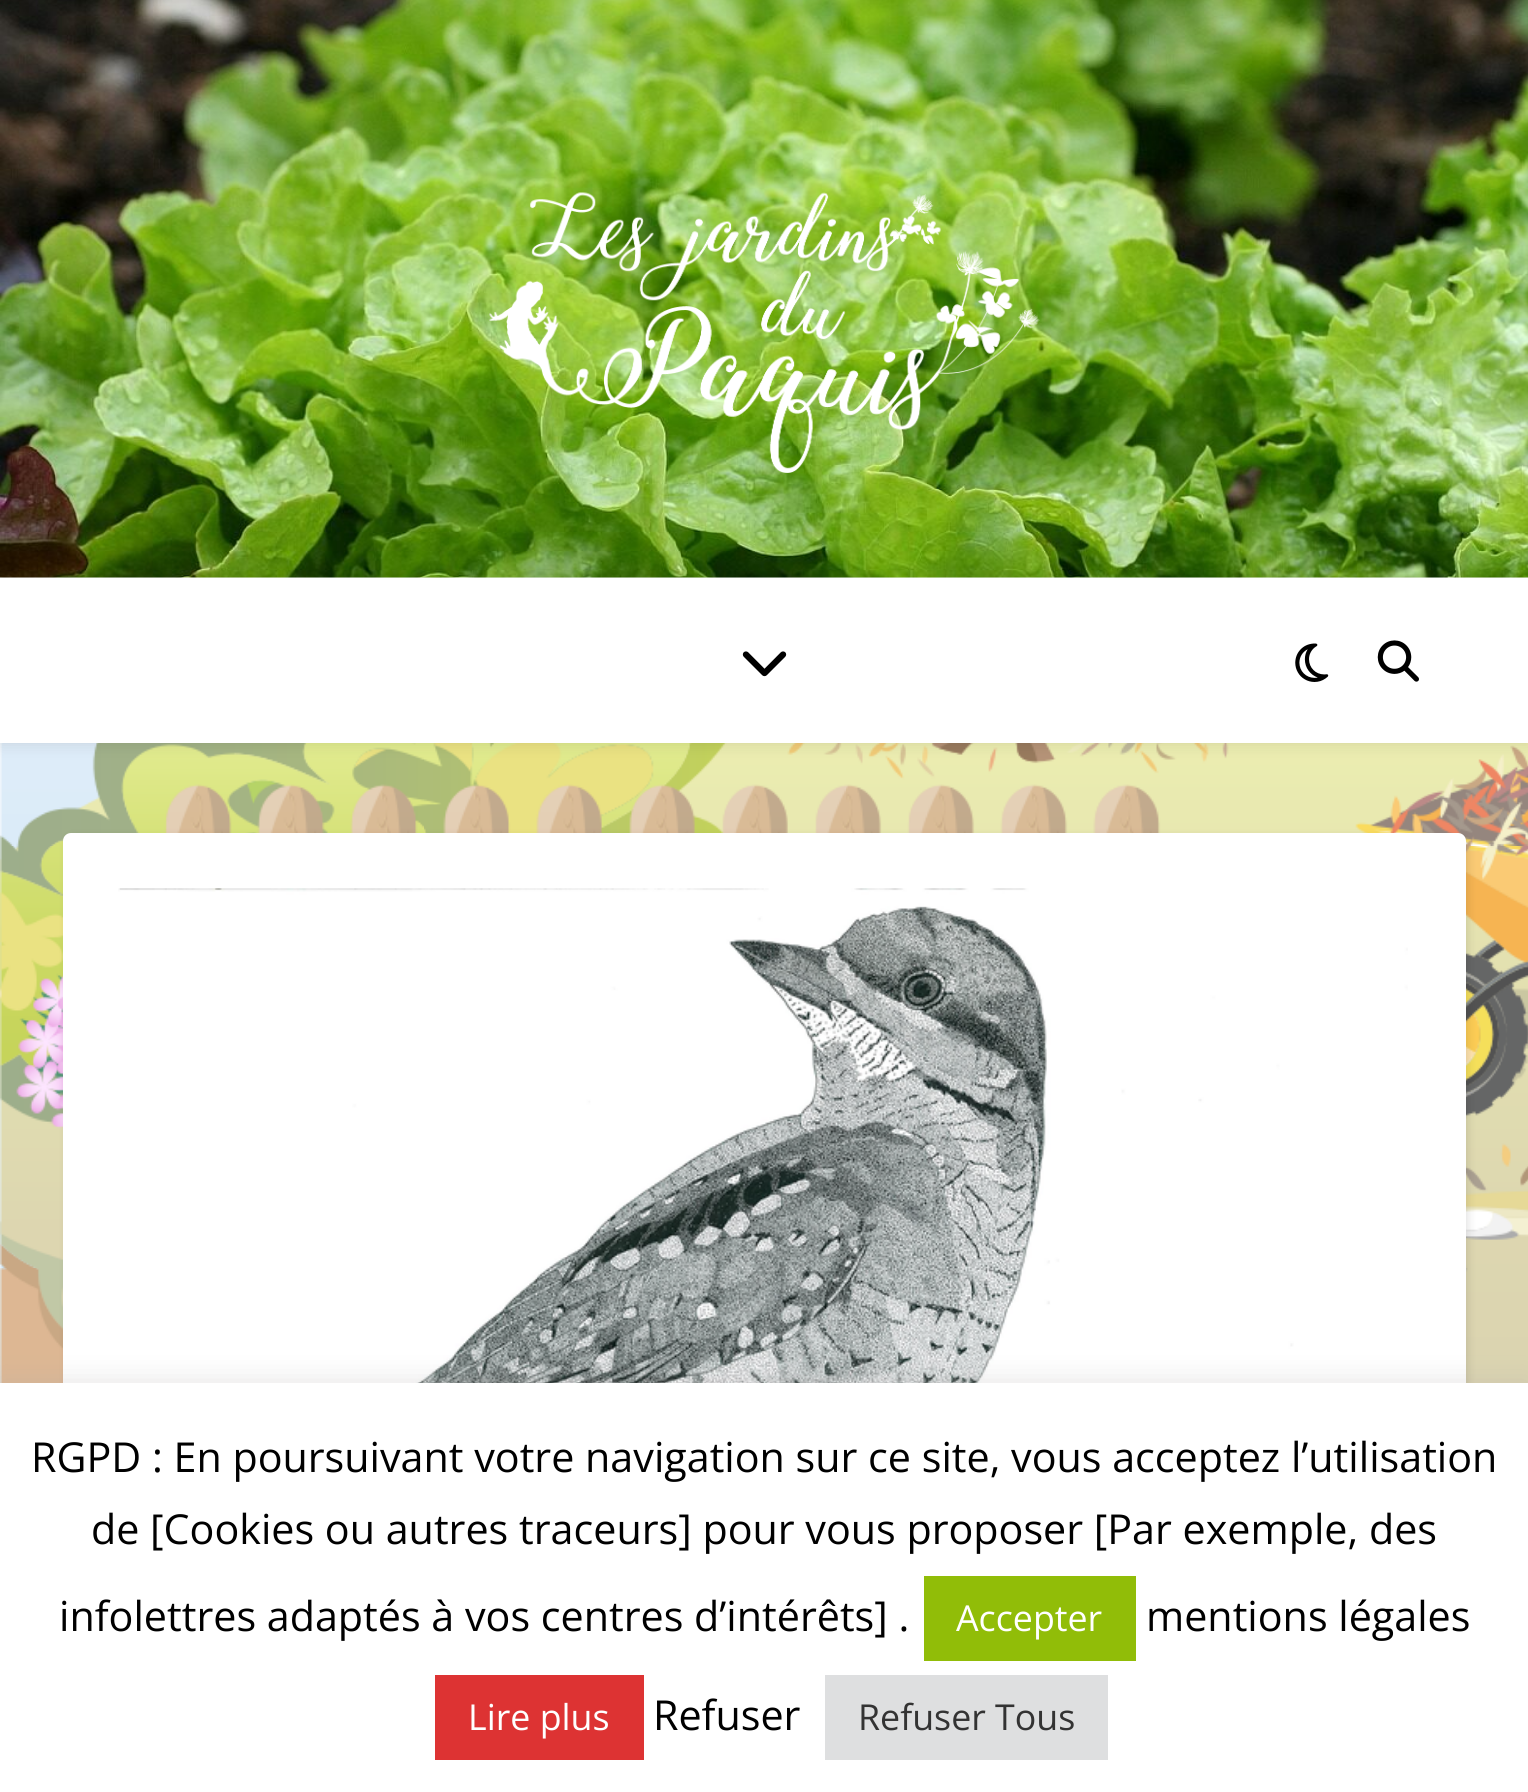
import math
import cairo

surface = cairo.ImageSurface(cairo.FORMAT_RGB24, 1528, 1792)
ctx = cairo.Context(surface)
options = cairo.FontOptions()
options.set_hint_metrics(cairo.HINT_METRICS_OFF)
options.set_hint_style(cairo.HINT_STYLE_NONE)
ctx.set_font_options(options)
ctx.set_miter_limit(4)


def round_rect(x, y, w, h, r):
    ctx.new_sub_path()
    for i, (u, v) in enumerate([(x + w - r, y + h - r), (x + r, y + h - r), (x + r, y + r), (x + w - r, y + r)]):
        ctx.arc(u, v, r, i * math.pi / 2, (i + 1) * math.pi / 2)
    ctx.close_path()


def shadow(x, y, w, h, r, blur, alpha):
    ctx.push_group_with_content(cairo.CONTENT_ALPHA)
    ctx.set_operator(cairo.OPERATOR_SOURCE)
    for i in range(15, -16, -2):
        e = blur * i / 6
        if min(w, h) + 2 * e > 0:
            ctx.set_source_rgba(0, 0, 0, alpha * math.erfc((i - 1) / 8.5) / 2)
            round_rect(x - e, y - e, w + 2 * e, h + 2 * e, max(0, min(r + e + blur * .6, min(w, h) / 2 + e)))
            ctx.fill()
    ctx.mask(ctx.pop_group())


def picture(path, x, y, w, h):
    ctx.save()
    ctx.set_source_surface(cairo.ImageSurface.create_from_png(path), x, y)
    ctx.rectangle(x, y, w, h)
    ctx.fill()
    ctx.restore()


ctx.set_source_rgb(1, 1, 1)
ctx.paint()
picture("img1.png", 0, 743, 1528, 640)
picture("img2.png", 0, 0, 1528, 578)
picture("img3.png", 489, 192, 551, 281)
ctx.set_source_rgb(0, 0, 0)
shadow(0, 580, 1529, 165, 0, 7, 0.1)
ctx.set_source_rgb(1, 1, 1)
ctx.rectangle(0, 578, 1528, 165)
ctx.fill()
picture("img4.png", 742, 651, 45, 26)
picture("img5.png", 1295, 643, 34, 39)
picture("img6.png", 1377, 640, 42, 42)
ctx.set_source_rgb(0, 0, 0)
shadow(66, 836, 1403, 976, 8, 4, 0.1)
ctx.set_source_rgb(1, 1, 1)
round_rect(63, 833, 1403, 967, 8)
ctx.fill()
picture("img7.png", 118, 888, 1290, 495)
ctx.set_source_rgb(0.675, 0.671, 0.671)
shadow(0, 1381, 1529, 409, 0, 14, 0.3)
ctx.set_source_rgb(1, 1, 1)
ctx.rectangle(0, 1383, 1528, 409)
ctx.fill()
ctx.select_font_face("Open Sans")
ctx.set_font_size(41.25)
ctx.set_source_rgb(0, 0, 0)
ctx.move_to(31, 1472)
ctx.show_text("RGPD : En poursuivant votre navigation sur ce site, vous acceptez l’utilisation")
ctx.move_to(91, 1544)
ctx.show_text("de [Cookies ou autres traceurs] pour vous proposer [Par exemple, des")
ctx.move_to(59, 1631)
ctx.show_text("infolettres adaptés à vos centres d’intérêts] .")
ctx.set_source_rgb(0.569, 0.741, 0.035)
ctx.rectangle(924, 1576, 212, 85)
ctx.fill()
ctx.set_font_size(35.75)
ctx.set_source_rgb(1, 1, 1)
ctx.move_to(956, 1631)
ctx.show_text("Accepter")
ctx.set_font_size(41.25)
ctx.set_source_rgb(0, 0, 0)
ctx.move_to(1146, 1631)
ctx.show_text("mentions légales")
ctx.set_source_rgb(0.867, 0.2, 0.2)
ctx.rectangle(435, 1675, 209, 85)
ctx.fill()
ctx.set_font_size(35.75)
ctx.set_source_rgb(1, 1, 1)
ctx.move_to(468, 1730)
ctx.show_text("Lire plus")
ctx.set_font_size(41.25)
ctx.set_source_rgb(0, 0, 0)
ctx.move_to(653, 1730)
ctx.show_text("Refuser")
ctx.set_source_rgb(0.871, 0.875, 0.878)
ctx.rectangle(825, 1675, 283, 85)
ctx.fill()
ctx.set_font_size(35.75)
ctx.set_source_rgb(0.2, 0.2, 0.2)
ctx.move_to(858, 1730)
ctx.show_text("Refuser Tous")
surface.write_to_png("page.png")
